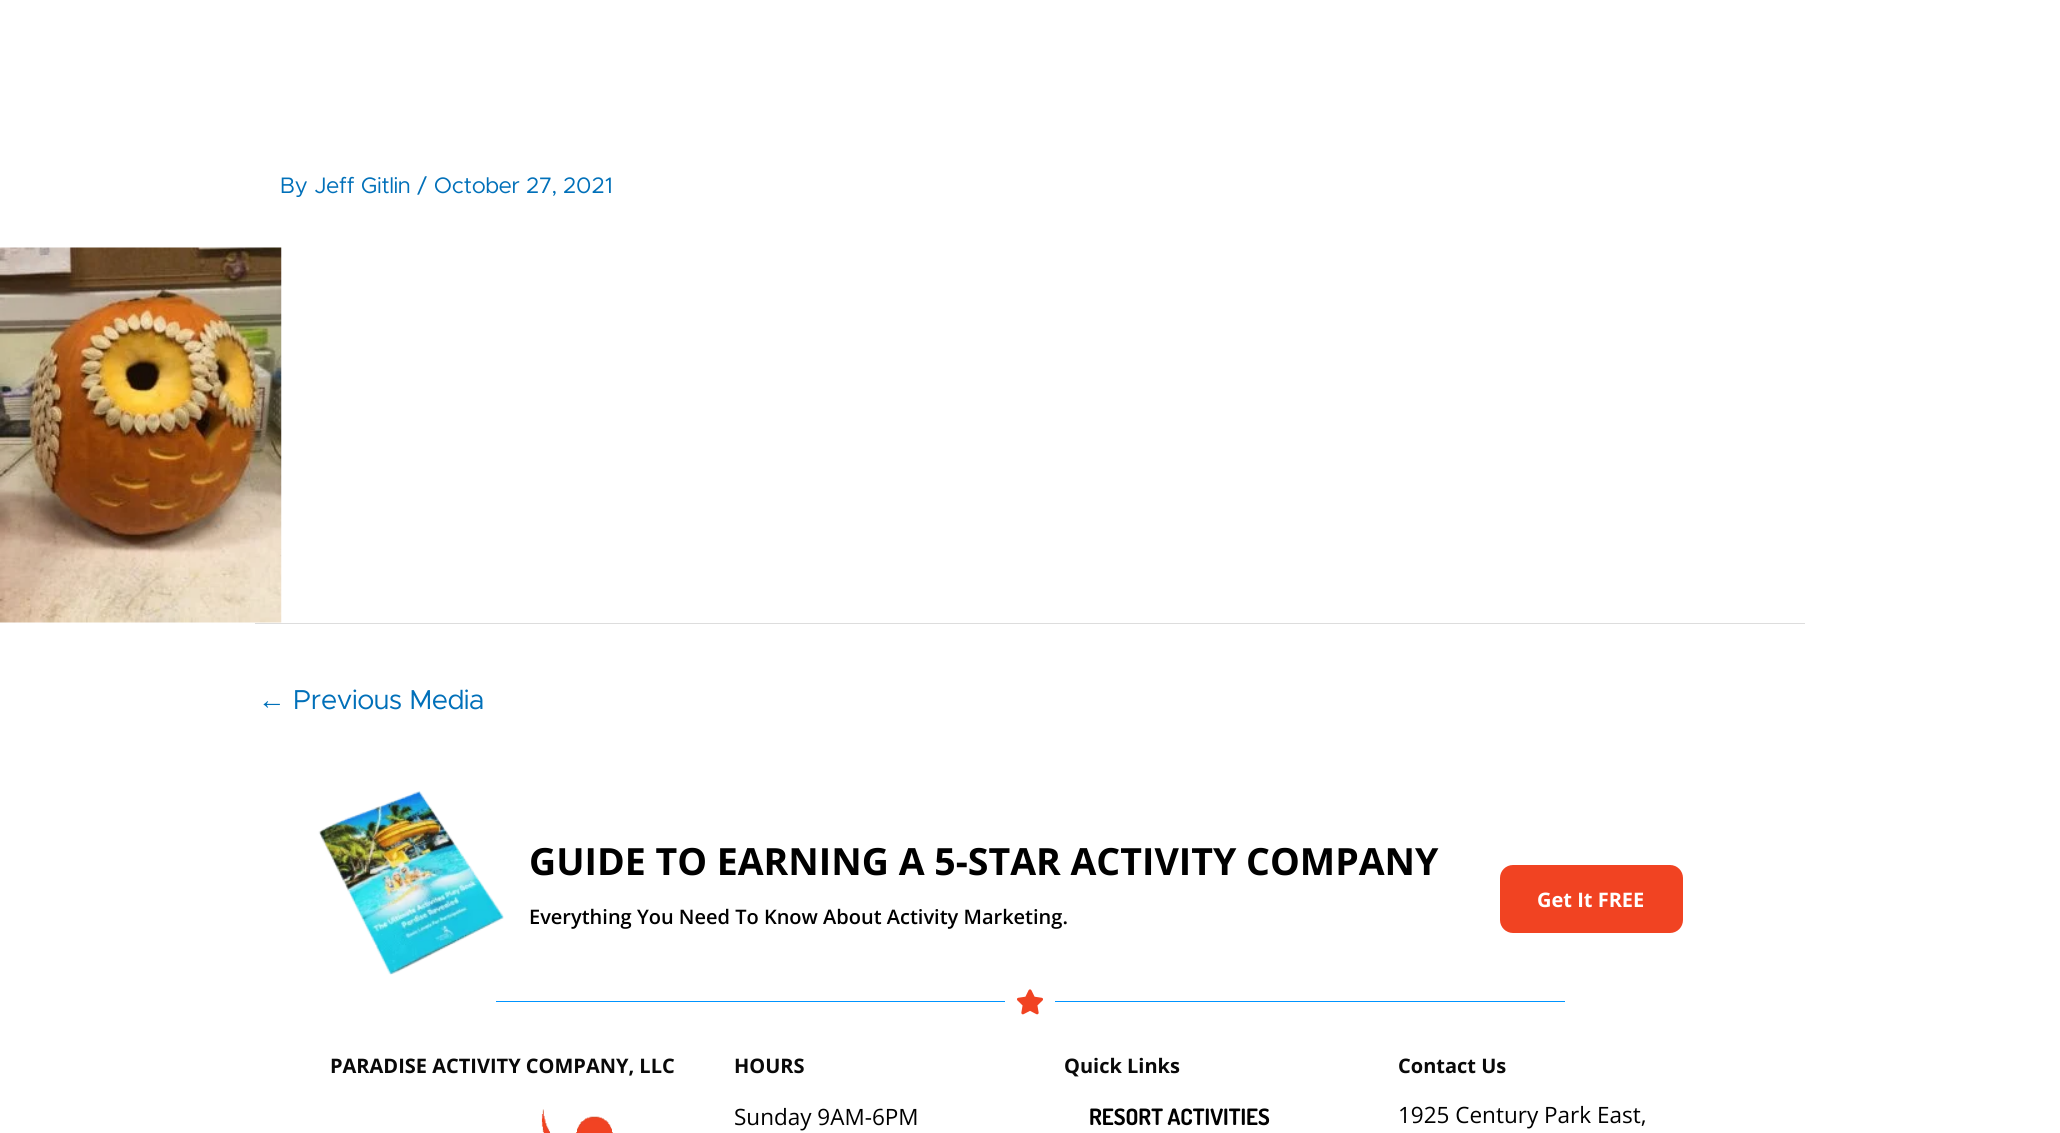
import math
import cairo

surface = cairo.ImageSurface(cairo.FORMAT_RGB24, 2060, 1133)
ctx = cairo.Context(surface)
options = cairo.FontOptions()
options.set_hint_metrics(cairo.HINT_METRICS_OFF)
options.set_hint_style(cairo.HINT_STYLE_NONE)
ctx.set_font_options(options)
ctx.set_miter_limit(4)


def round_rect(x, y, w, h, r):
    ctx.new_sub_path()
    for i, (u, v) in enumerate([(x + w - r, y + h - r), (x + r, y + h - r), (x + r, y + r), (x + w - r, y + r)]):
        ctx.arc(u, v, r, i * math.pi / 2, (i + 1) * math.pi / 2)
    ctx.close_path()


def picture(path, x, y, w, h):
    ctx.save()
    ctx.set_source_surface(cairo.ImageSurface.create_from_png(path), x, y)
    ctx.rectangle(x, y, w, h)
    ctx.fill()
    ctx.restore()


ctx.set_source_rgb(1, 1, 1)
ctx.paint()
ctx.select_font_face("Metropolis")
ctx.set_font_size(22.5)
ctx.set_source_rgb(0.004, 0.439, 0.725)
ctx.move_to(280, 193)
ctx.show_text("By Jeff Gitlin / October 27, 2021")
picture("img1.png", 0, 247, 282, 376)
ctx.set_source_rgb(0.867, 0.867, 0.867)
ctx.rectangle(255, 623, 1550, 1)
ctx.fill()
ctx.select_font_face("Liberation Sans")
ctx.set_font_size(27.5)
ctx.set_source_rgb(0.004, 0.439, 0.725)
ctx.move_to(258, 709)
ctx.show_text("←")
ctx.select_font_face("Metropolis")
ctx.move_to(293, 709)
ctx.show_text("Previous Media")
picture("img2.png", 318, 791, 186, 184)
ctx.select_font_face("Open Sans", cairo.FONT_SLANT_NORMAL, cairo.FONT_WEIGHT_BOLD)
ctx.set_font_size(37.5)
ctx.set_source_rgb(0, 0, 0)
ctx.move_to(529, 875)
ctx.show_text("GUIDE TO EARNING A 5-STAR ACTIVITY COMPANY")
ctx.select_font_face("Open Sans SemiBold")
ctx.set_font_size(20)
ctx.move_to(529, 924)
ctx.show_text("Everything You Need To Know About Activity Marketing.")
ctx.set_source_rgb(0.945, 0.263, 0.133)
round_rect(1500, 865, 183, 68, 13)
ctx.fill()
ctx.select_font_face("Open Sans", cairo.FONT_SLANT_NORMAL, cairo.FONT_WEIGHT_BOLD)
ctx.set_source_rgb(1, 1, 1)
ctx.move_to(1537, 907)
ctx.show_text("Get It FREE")
ctx.set_source_rgb(0, 0.58, 1)
ctx.rectangle(496, 1001, 509, 1)
ctx.fill()
picture("img3.png", 1017, 989, 26, 26)
ctx.rectangle(1055, 1001, 510, 1)
ctx.fill()
ctx.set_source_rgb(0.039, 0.039, 0.039)
ctx.move_to(330, 1073)
ctx.show_text("PARADISE ACTIVITY COMPANY, LLC")
picture("img4.png", 541, 1109, 72, 24)
ctx.move_to(734, 1073)
ctx.show_text("HOURS")
ctx.select_font_face("Open Sans")
ctx.set_font_size(22.5)
ctx.set_source_rgb(0, 0, 0)
ctx.move_to(734, 1125)
ctx.show_text("Sunday 9AM-6PM")
ctx.select_font_face("Open Sans", cairo.FONT_SLANT_NORMAL, cairo.FONT_WEIGHT_BOLD)
ctx.set_font_size(20)
ctx.set_source_rgb(0.039, 0.039, 0.039)
ctx.move_to(1064, 1073)
ctx.show_text("Quick Links")
ctx.select_font_face("Dosis", cairo.FONT_SLANT_NORMAL, cairo.FONT_WEIGHT_BOLD)
ctx.set_font_size(22.5)
ctx.set_source_rgb(0, 0, 0)
ctx.move_to(1089, 1125)
ctx.show_text("RESORT ACTIVITIES")
ctx.select_font_face("Open Sans", cairo.FONT_SLANT_NORMAL, cairo.FONT_WEIGHT_BOLD)
ctx.set_font_size(20)
ctx.set_source_rgb(0.039, 0.039, 0.039)
ctx.move_to(1398, 1073)
ctx.show_text("Contact Us")
ctx.select_font_face("Open Sans")
ctx.set_font_size(22.5)
ctx.set_source_rgb(0, 0, 0)
ctx.move_to(1398, 1123)
ctx.show_text("1925 Century Park East,")
surface.write_to_png("page.png")
